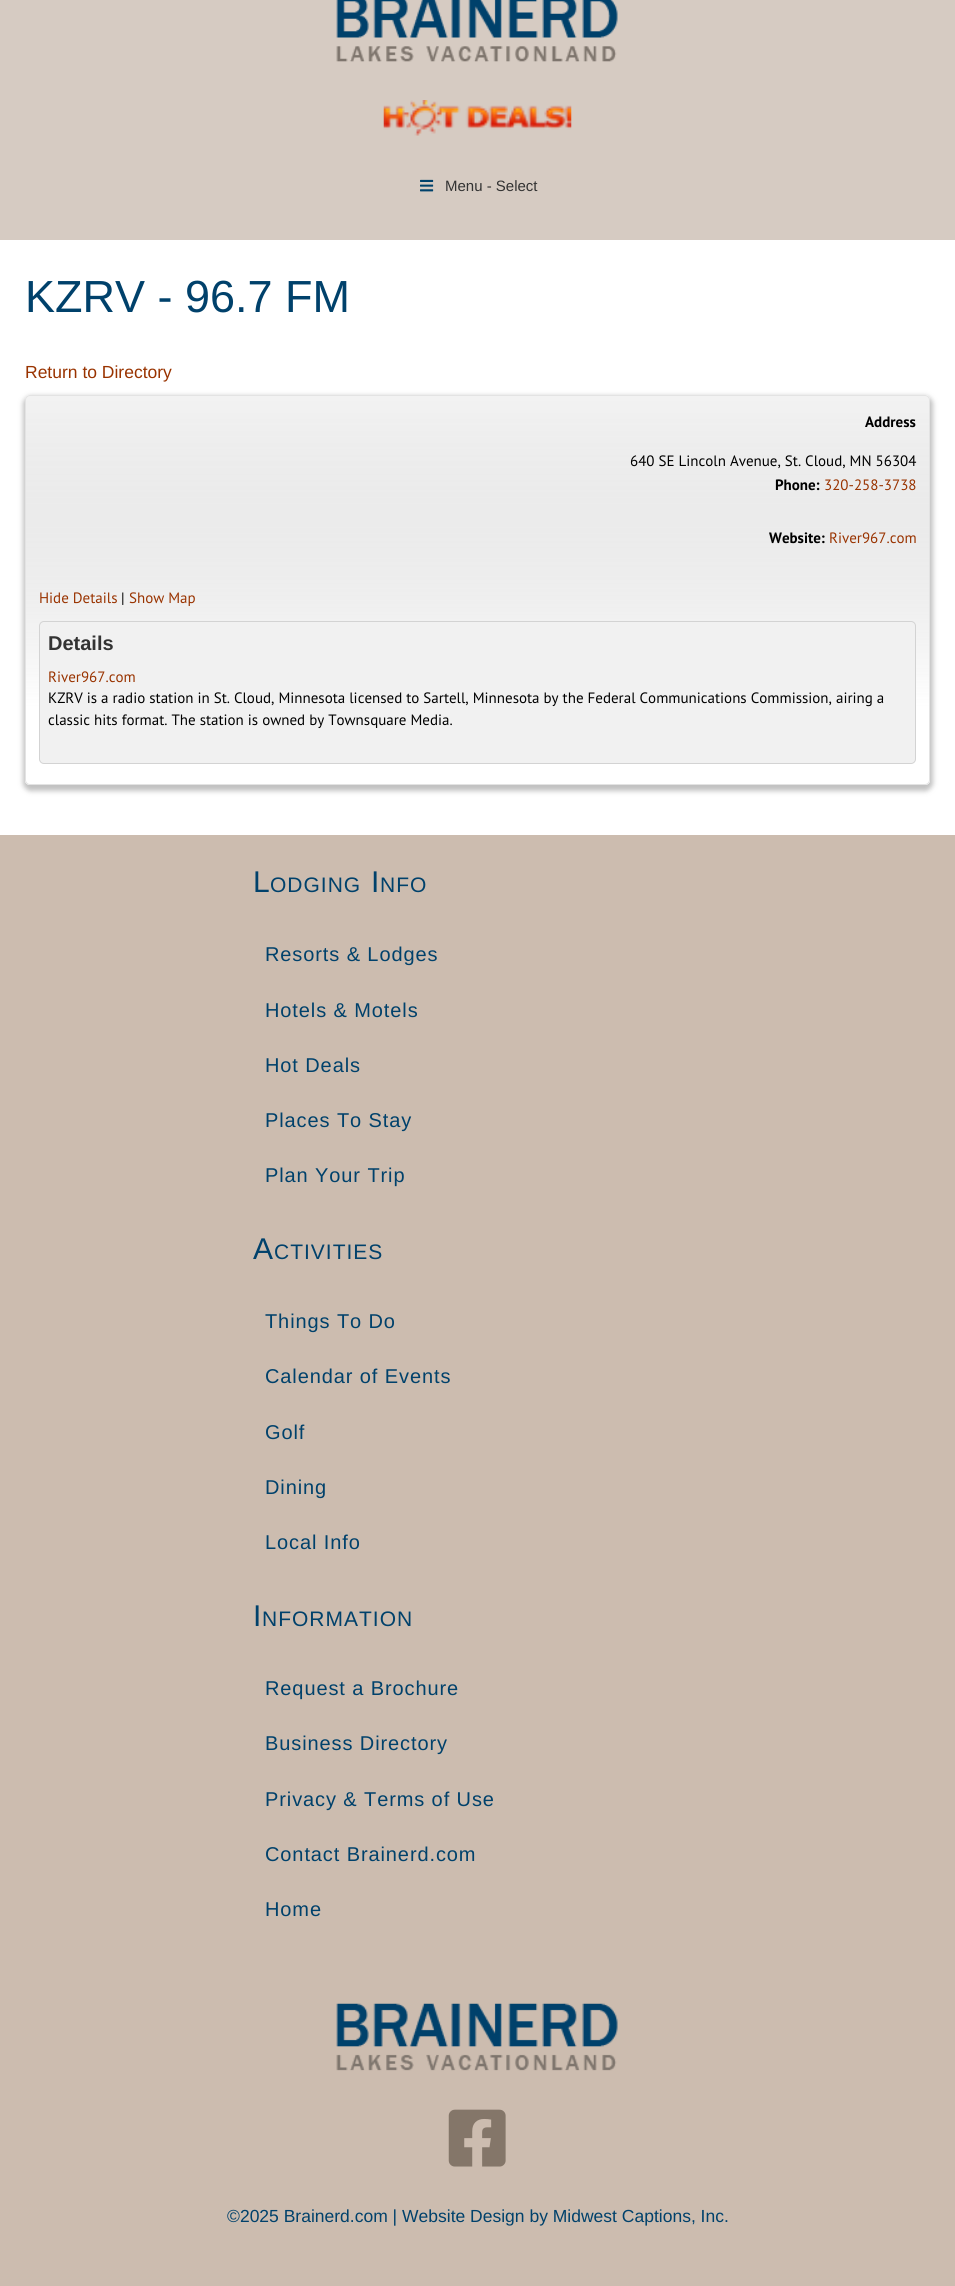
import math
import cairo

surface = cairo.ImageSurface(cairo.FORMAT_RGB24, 955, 2286)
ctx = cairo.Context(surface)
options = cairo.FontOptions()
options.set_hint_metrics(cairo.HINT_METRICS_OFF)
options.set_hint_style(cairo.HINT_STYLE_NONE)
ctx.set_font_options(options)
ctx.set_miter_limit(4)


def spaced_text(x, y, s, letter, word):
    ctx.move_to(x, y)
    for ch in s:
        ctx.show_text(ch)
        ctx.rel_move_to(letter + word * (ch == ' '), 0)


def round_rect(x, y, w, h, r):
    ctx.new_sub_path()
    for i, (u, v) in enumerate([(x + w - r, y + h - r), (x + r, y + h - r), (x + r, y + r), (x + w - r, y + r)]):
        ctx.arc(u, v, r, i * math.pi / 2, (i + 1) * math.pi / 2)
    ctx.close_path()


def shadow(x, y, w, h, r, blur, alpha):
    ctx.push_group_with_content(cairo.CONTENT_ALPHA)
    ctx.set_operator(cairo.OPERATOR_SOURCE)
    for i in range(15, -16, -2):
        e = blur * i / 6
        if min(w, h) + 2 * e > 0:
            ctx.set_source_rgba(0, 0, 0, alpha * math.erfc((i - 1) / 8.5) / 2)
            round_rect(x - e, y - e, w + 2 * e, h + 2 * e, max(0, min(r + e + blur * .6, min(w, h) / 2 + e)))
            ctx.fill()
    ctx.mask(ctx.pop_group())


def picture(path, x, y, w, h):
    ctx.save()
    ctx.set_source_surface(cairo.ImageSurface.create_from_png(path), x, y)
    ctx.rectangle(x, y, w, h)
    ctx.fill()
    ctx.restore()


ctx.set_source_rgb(0.839, 0.796, 0.761)
ctx.paint()
picture("img1.png", 336, 0, 282, 62)
picture("img2.png", 383, 100, 189, 36)
picture("img3.png", 420, 179, 14, 13)
ctx.select_font_face("Liberation Sans")
ctx.set_font_size(15)
ctx.set_source_rgb(0.2, 0.2, 0.2)
ctx.move_to(445, 191)
ctx.show_text("Menu - Select")
ctx.set_source_rgb(1, 1, 1)
ctx.rectangle(0, 240, 955, 595)
ctx.fill()
ctx.set_font_size(45)
ctx.set_source_rgb(0, 0.255, 0.42)
ctx.move_to(25, 312)
ctx.show_text("KZRV - 96.7 FM")
ctx.set_font_size(17.5)
ctx.set_source_rgb(0.6, 0.2, 0)
ctx.move_to(25, 378)
ctx.show_text("Return to Directory")
ctx.save()
ctx.set_fill_rule(cairo.FILL_RULE_EVEN_ODD)
ctx.new_path()
ctx.move_to(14, 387)
ctx.line_to(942, 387)
ctx.line_to(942, 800)
ctx.line_to(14, 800)
ctx.close_path()
ctx.move_to(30, 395)
ctx.line_to(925, 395)
ctx.curve_to(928, 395, 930, 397, 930, 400)
ctx.line_to(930, 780)
ctx.curve_to(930, 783, 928, 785, 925, 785)
ctx.line_to(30, 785)
ctx.curve_to(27, 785, 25, 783, 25, 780)
ctx.line_to(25, 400)
ctx.curve_to(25, 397, 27, 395, 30, 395)
ctx.close_path()
ctx.clip()
ctx.set_source_rgb(0.392, 0.392, 0.392)
shadow(23, 396, 910, 395, 8, 2.5, 0.4)
ctx.restore()
ctx.save()
round_rect(25, 395, 905, 390, 5)
ctx.clip()
gradient = cairo.LinearGradient(478, 396, 478, 784)
gradient.add_color_stop_rgba(0, 0, 0, 0, 0.05)
gradient.add_color_stop_rgba(0.8, 1, 1, 1, 0.25)
gradient.add_color_stop_rgba(1, 1, 1, 1, 0.3)
ctx.set_source(gradient)
ctx.rectangle(25, 396, 905, 388)
ctx.fill()
ctx.restore()
round_rect(25.5, 395.5, 904, 389, 4.5)
ctx.set_source_rgb(0.89, 0.89, 0.89)
ctx.set_line_width(1)
ctx.stroke()
ctx.select_font_face("PT Sans", cairo.FONT_SLANT_NORMAL, cairo.FONT_WEIGHT_BOLD)
ctx.set_font_size(15)
ctx.set_source_rgb(0, 0, 0)
ctx.move_to(865, 427)
ctx.show_text("Address")
ctx.select_font_face("PT Sans")
ctx.move_to(630, 466)
ctx.show_text("640 SE Lincoln Avenue, St. Cloud, MN 56304")
ctx.select_font_face("PT Sans", cairo.FONT_SLANT_NORMAL, cairo.FONT_WEIGHT_BOLD)
ctx.move_to(775, 490)
ctx.show_text("Phone:")
ctx.select_font_face("PT Sans")
ctx.set_source_rgb(0.6, 0.2, 0)
ctx.move_to(824, 490)
ctx.show_text("320-258-3738")
ctx.select_font_face("PT Sans", cairo.FONT_SLANT_NORMAL, cairo.FONT_WEIGHT_BOLD)
ctx.set_source_rgb(0, 0, 0)
ctx.move_to(769, 543)
ctx.show_text("Website:")
ctx.select_font_face("PT Sans")
ctx.set_source_rgb(0.6, 0.2, 0)
ctx.move_to(829, 543)
ctx.show_text("River967.com")
ctx.move_to(39, 603)
ctx.show_text("Hide Details")
ctx.set_source_rgb(0, 0, 0)
ctx.move_to(121, 603)
ctx.show_text("|")
ctx.set_source_rgb(0.6, 0.2, 0)
ctx.move_to(129, 603)
ctx.show_text("Show Map")
ctx.set_source_rgb(0.945, 0.945, 0.945)
round_rect(39.5, 621.5, 876, 142, 4.5)
ctx.fill_preserve()
ctx.set_source_rgb(0.827, 0.827, 0.827)
ctx.stroke()
ctx.select_font_face("Liberation Sans", cairo.FONT_SLANT_NORMAL, cairo.FONT_WEIGHT_BOLD)
ctx.set_font_size(20)
ctx.set_source_rgb(0.2, 0.2, 0.2)
ctx.move_to(48, 650)
ctx.show_text("Details")
ctx.select_font_face("PT Sans")
ctx.set_font_size(15)
ctx.set_source_rgb(0.6, 0.2, 0)
ctx.move_to(48, 682)
ctx.show_text("River967.com")
ctx.set_source_rgb(0, 0, 0)
ctx.move_to(48, 703)
ctx.show_text("KZRV is a radio station in St. Cloud, Minnesota licensed to Sartell, Minnesota by the Federal Communications Commission, airing a")
ctx.move_to(48, 725)
ctx.show_text("classic hits format. The station is owned by Townsquare Media.")
ctx.set_source_rgb(0.8, 0.737, 0.686)
ctx.rectangle(0, 835, 955, 1451)
ctx.fill()
ctx.select_font_face("Liberation Sans")
ctx.set_font_size(30)
ctx.set_source_rgb(0, 0.255, 0.42)
spaced_text(253, 892, "L", 1, 0)
ctx.set_font_size(21)
spaced_text(270, 892, "ODGING", 1, 0)
ctx.set_font_size(30)
spaced_text(371, 892, "I", 1, 0)
ctx.set_font_size(21)
spaced_text(380, 892, "NFO", 1, 0)
ctx.set_font_size(20)
spaced_text(265, 961, "Resorts & Lodges", 0.9, 0)
spaced_text(265, 1017, "Hotels & Motels", 0.9, 0)
spaced_text(265, 1072, "Hot Deals", 0.9, 0)
spaced_text(265, 1127, "Places To Stay", 0.9, 0)
spaced_text(265, 1182, "Plan Your Trip", 0.9, 0)
ctx.set_font_size(30)
spaced_text(253, 1259, "A", 1, 0)
ctx.set_font_size(21)
spaced_text(274, 1259, "CTIVITIES", 1, 0)
ctx.set_font_size(20)
spaced_text(265, 1328, "Things To Do", 0.9, 0)
spaced_text(265, 1383, "Calendar of Events", 0.9, 0)
spaced_text(265, 1439, "Golf", 0.9, 0)
spaced_text(265, 1494, "Dining", 0.9, 0)
spaced_text(265, 1549, "Local Info", 0.9, 0)
ctx.set_font_size(30)
spaced_text(253, 1626, "I", 1, 0)
ctx.set_font_size(21)
spaced_text(262, 1626, "NFORMATION", 1, 0)
ctx.set_font_size(20)
spaced_text(265, 1695, "Request a Brochure", 0.9, 0)
spaced_text(265, 1750, "Business Directory", 0.9, 0)
spaced_text(265, 1806, "Privacy & Terms of Use", 0.9, 0)
spaced_text(265, 1861, "Contact Brainerd.com", 0.9, 0)
spaced_text(265, 1916, "Home", 0.9, 0)
picture("img4.png", 336, 2003, 282, 68)
picture("img5.png", 448, 2109, 58, 58)
ctx.set_font_size(17.5)
ctx.move_to(227, 2222)
ctx.show_text("©2025 Brainerd.com | Website Design by Midwest Captions, Inc.")
surface.write_to_png("page.png")
